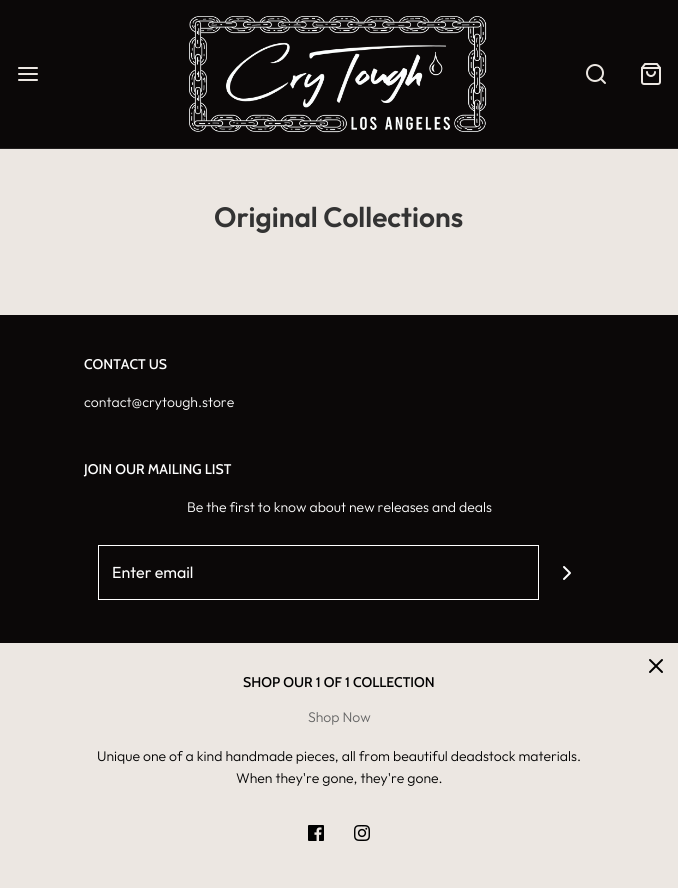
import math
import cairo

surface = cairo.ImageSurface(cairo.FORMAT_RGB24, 678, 888)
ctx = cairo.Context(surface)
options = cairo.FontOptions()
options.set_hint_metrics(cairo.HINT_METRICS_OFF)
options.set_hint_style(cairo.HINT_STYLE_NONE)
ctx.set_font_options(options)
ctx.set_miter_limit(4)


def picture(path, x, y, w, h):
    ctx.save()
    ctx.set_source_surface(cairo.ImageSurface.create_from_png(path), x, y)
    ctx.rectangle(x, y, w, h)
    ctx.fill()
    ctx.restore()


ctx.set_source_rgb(0.925, 0.906, 0.886)
ctx.paint()
ctx.set_source_rgb(0.043, 0.035, 0.035)
ctx.rectangle(0, 0, 678, 148)
ctx.fill()
ctx.set_source_rgb(0.133, 0.122, 0.122)
ctx.rectangle(0, 148, 678, 1)
ctx.fill()
ctx.new_path()
ctx.move_to(19, 74)
ctx.line_to(37, 74)
ctx.move_to(19, 68)
ctx.line_to(37, 68)
ctx.move_to(19, 80)
ctx.line_to(37, 80)
ctx.set_source_rgb(0.925, 0.906, 0.886)
ctx.set_line_cap(cairo.LINE_CAP_ROUND)
ctx.set_line_join(cairo.LINE_JOIN_ROUND)
ctx.stroke()
picture("img1.png", 189, 16, 298, 117)
ctx.arc(595, 73, 8, 0, 2 * math.pi)
ctx.set_line_cap(cairo.LINE_CAP_BUTT)
ctx.set_line_join(cairo.LINE_JOIN_MITER)
ctx.stroke()
ctx.new_path()
ctx.move_to(605, 83)
ctx.line_to(600.5, 78.5)
ctx.set_line_cap(cairo.LINE_CAP_ROUND)
ctx.set_line_join(cairo.LINE_JOIN_ROUND)
ctx.stroke()
picture("img2.png", 641, 63, 20, 22)
ctx.select_font_face("Outfit SemiBold")
ctx.set_font_size(28)
ctx.set_source_rgb(0.2, 0.2, 0.2)
ctx.move_to(214, 227)
ctx.show_text("Original Collections")
ctx.set_source_rgb(0.043, 0.035, 0.035)
ctx.rectangle(0, 315, 678, 328)
ctx.fill()
ctx.select_font_face("Cabin Medium")
ctx.set_font_size(14)
ctx.set_source_rgb(1, 1, 1)
ctx.move_to(84, 369)
ctx.show_text("CONTACT US")
ctx.select_font_face("Outfit Light")
ctx.move_to(84, 407)
ctx.show_text("contact@crytough.store")
ctx.select_font_face("Cabin Medium")
ctx.move_to(84, 474)
ctx.show_text("JOIN OUR MAILING LIST")
ctx.select_font_face("Outfit Light")
ctx.move_to(187, 512)
ctx.show_text("Be the first to know about new releases and deals")
ctx.rectangle(98.5, 545.5, 440, 54)
ctx.set_line_width(1)
ctx.set_line_cap(cairo.LINE_CAP_BUTT)
ctx.set_line_join(cairo.LINE_JOIN_MITER)
ctx.stroke()
ctx.select_font_face("Outfit")
ctx.set_font_size(16)
ctx.move_to(112, 578)
ctx.show_text("Enter email")
ctx.new_path()
ctx.move_to(564, 579)
ctx.line_to(570, 573)
ctx.line_to(564, 567)
ctx.set_line_width(2)
ctx.set_line_cap(cairo.LINE_CAP_ROUND)
ctx.set_line_join(cairo.LINE_JOIN_ROUND)
ctx.stroke()
ctx.new_path()
ctx.move_to(662, 660)
ctx.line_to(650, 672)
ctx.move_to(650, 660)
ctx.line_to(662, 672)
ctx.set_source_rgb(0, 0, 0)
ctx.stroke()
ctx.select_font_face("Cabin Medium")
ctx.set_font_size(14)
ctx.move_to(243, 687)
ctx.show_text("SHOP OUR 1 OF 1 COLLECTION")
ctx.select_font_face("Outfit Light")
ctx.set_source_rgb(0.396, 0.396, 0.396)
ctx.move_to(308, 722)
ctx.show_text("Shop Now")
ctx.set_source_rgb(0, 0, 0)
ctx.move_to(97, 761)
ctx.show_text("Unique one of a kind handmade pieces, all from beautiful deadstock materials.")
ctx.move_to(236, 783)
ctx.show_text("When they're gone, they're gone.")
picture("img3.png", 308, 825, 16, 16)
picture("img4.png", 354, 825, 16, 16)
surface.write_to_png("page.png")
